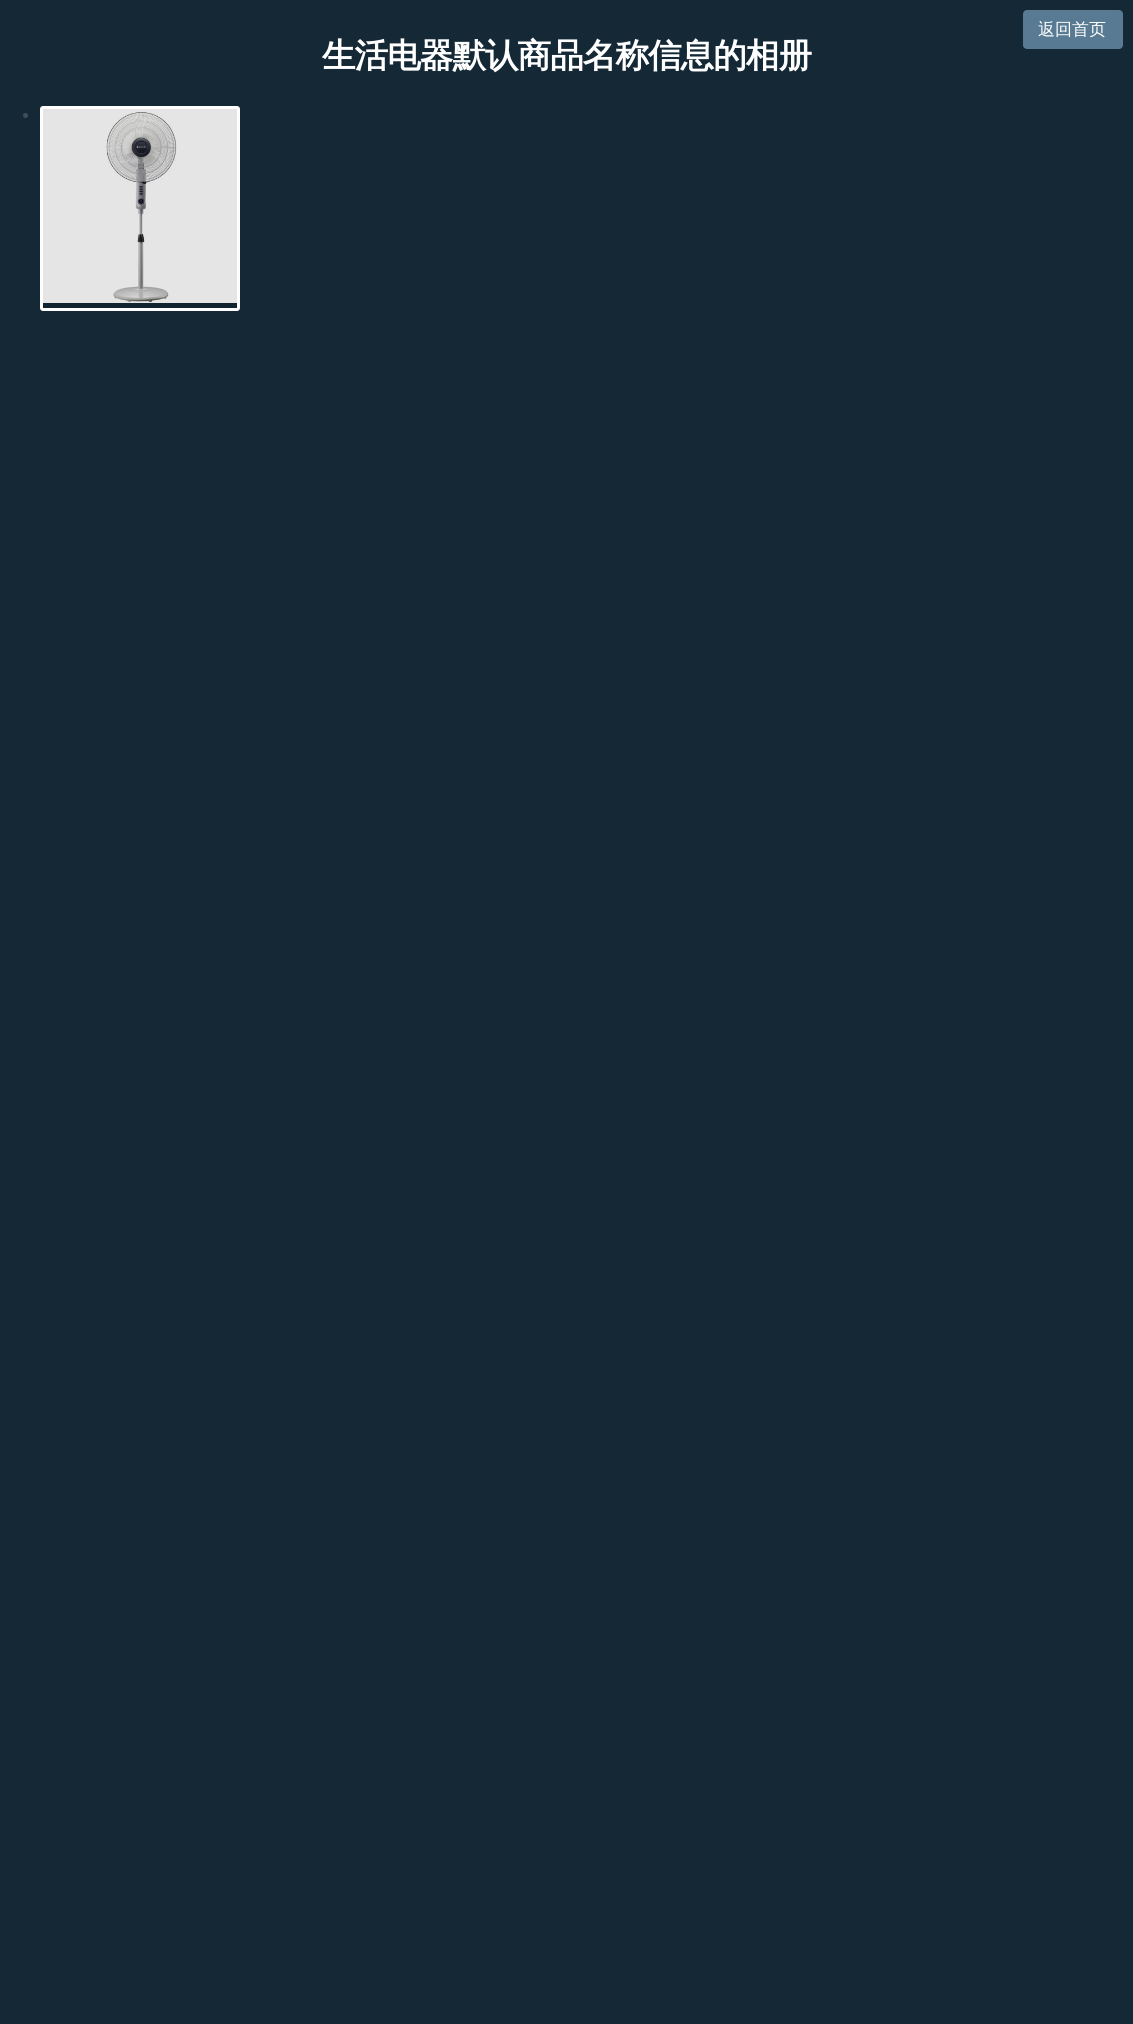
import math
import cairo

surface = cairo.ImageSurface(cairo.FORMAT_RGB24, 1133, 2024)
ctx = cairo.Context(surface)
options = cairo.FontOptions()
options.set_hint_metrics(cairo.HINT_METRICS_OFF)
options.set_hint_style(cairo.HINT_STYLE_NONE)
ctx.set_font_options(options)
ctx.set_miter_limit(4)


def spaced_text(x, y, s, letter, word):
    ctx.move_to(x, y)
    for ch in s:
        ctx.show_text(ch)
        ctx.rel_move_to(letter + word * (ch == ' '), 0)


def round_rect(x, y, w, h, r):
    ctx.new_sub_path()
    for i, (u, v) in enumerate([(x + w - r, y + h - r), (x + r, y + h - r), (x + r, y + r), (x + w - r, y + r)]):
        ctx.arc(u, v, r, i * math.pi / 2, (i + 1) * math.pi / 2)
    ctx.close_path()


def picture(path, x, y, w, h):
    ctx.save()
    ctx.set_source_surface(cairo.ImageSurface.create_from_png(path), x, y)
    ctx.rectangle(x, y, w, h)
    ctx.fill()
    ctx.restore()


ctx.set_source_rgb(0.082, 0.157, 0.212)
ctx.paint()
ctx.set_source_rgb(0.075, 0.141, 0.192)
ctx.rectangle(43, 303, 194, 5)
ctx.fill()
ctx.set_source_rgb(0.345, 0.478, 0.576)
round_rect(1023, 10, 100, 39, 4)
ctx.fill()
ctx.select_font_face("WenQuanYi Zen Hei Medium")
ctx.set_font_size(17)
ctx.set_source_rgb(1, 1, 1)
ctx.move_to(1038, 35)
ctx.show_text("返回首页")
ctx.select_font_face("WenQuanYi Zen Hei", cairo.FONT_SLANT_NORMAL, cairo.FONT_WEIGHT_BOLD)
ctx.set_font_size(33.6)
spaced_text(322, 67, "生活电器默认商品名称信息的相册", -1, 0)
ctx.set_source_rgb(0.251, 0.302, 0.357)
ctx.new_path()
ctx.arc(25.5, 115.5, 2.5, 0, 2 * math.pi)
ctx.fill()
round_rect(41.5, 107.5, 197, 202, 1.5)
ctx.set_source_rgb(1, 1, 1)
ctx.set_line_width(3)
ctx.stroke()
picture("img1.png", 43, 109, 194, 194)
surface.write_to_png("page.png")
